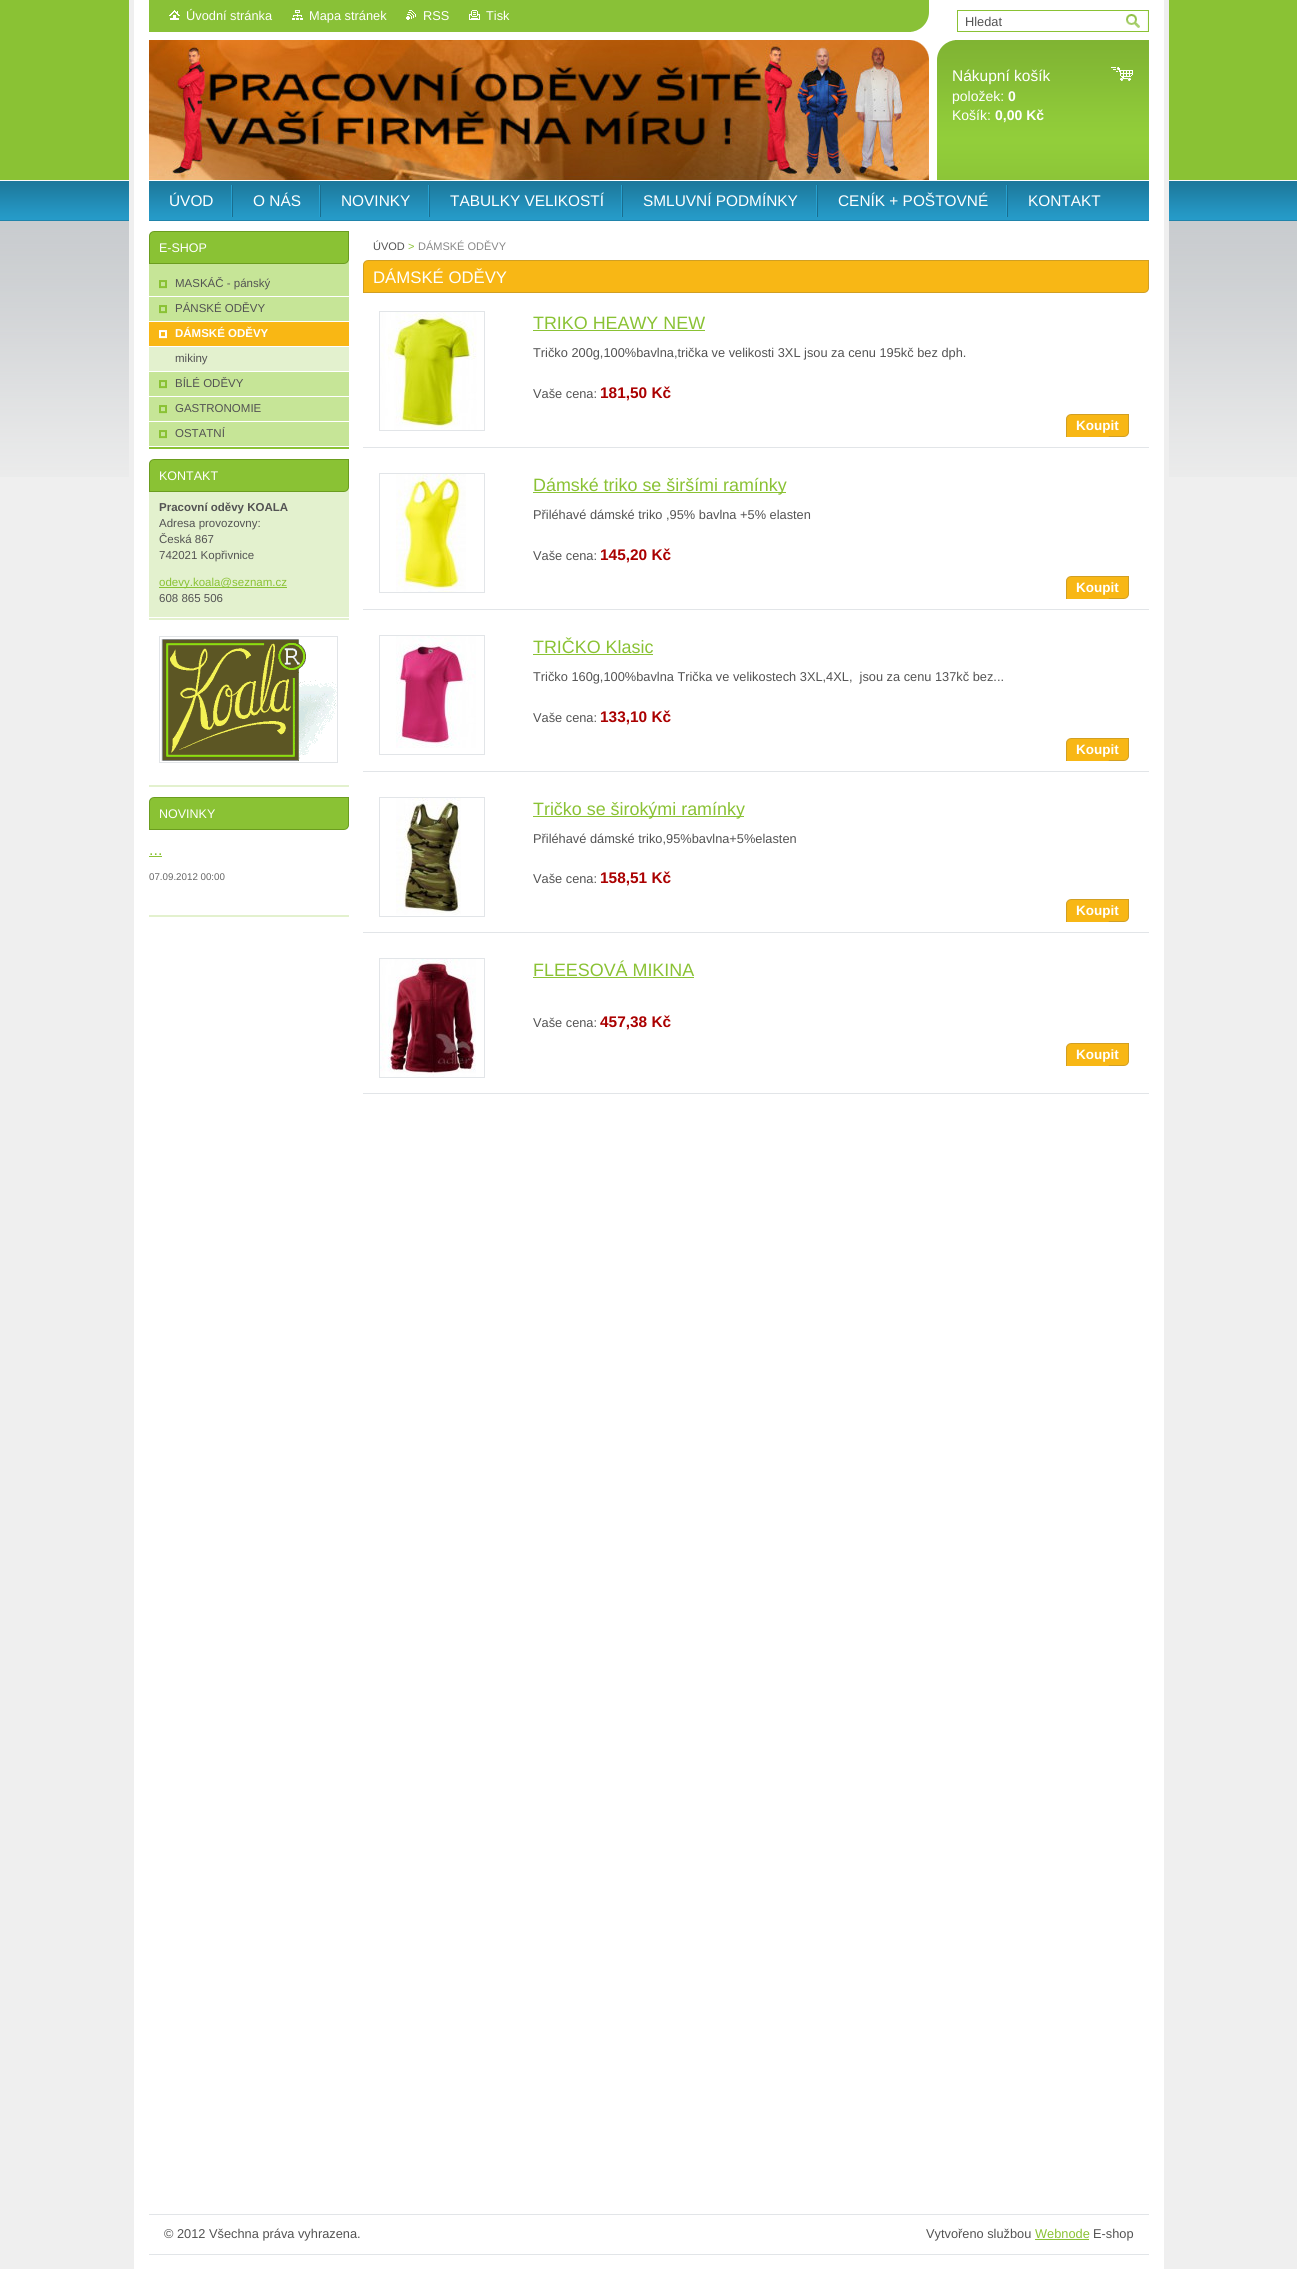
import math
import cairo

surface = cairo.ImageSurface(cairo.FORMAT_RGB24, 1297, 2269)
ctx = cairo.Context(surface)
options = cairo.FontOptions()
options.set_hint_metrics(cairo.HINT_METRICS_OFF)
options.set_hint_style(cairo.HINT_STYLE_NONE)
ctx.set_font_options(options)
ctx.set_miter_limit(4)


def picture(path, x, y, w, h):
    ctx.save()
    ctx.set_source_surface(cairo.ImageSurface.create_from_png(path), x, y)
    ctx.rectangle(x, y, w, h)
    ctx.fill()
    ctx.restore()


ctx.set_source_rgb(0.937, 0.937, 0.937)
ctx.paint()
picture("img1.png", 0, 0, 1297, 477)
ctx.set_source_rgb(1, 1, 1)
ctx.rectangle(134, 0, 1030, 2269)
ctx.fill()
ctx.set_source_rgb(0.937, 0.937, 0.937)
ctx.rectangle(1164, 0, 5, 477)
ctx.fill()
ctx.rectangle(129, 0, 5, 477)
ctx.fill()
picture("img2.png", 149, 0, 780, 32)
picture("img3.png", 169, 10, 11, 10)
ctx.select_font_face("Liberation Sans")
ctx.set_font_size(12.8)
ctx.set_source_rgb(1, 1, 1)
ctx.move_to(186, 20)
ctx.show_text("Úvodní stránka")
picture("img4.png", 292, 10, 11, 10)
ctx.move_to(309, 20)
ctx.show_text("Mapa stránek")
picture("img5.png", 406, 10, 10, 10)
ctx.move_to(423, 20)
ctx.show_text("RSS")
picture("img6.png", 469, 10, 11, 10)
ctx.move_to(486, 20)
ctx.show_text("Tisk")
picture("img7.png", 957, 10, 192, 22)
ctx.set_source_rgb(0.557, 0.753, 0.259)
ctx.rectangle(1129, 15, 5, 1)
ctx.fill()
ctx.set_source_rgb(0.325, 0.325, 0.325)
ctx.move_to(965, 26)
ctx.show_text("Hledat")
picture("img8.png", 149, 40, 780, 140)
picture("img9.png", 909, 40, 20, 20)
picture("img10.png", 937, 40, 212, 140)
picture("img11.png", 1111, 67, 22, 14)
ctx.set_font_size(15.5)
ctx.set_source_rgb(1, 1, 1)
ctx.move_to(952, 81)
ctx.show_text("Nákupní košík")
ctx.set_font_size(14)
ctx.move_to(952, 101)
ctx.show_text("položek:")
ctx.select_font_face("Liberation Sans", cairo.FONT_SLANT_NORMAL, cairo.FONT_WEIGHT_BOLD)
ctx.move_to(1008, 101)
ctx.show_text("0")
ctx.select_font_face("Liberation Sans")
ctx.move_to(952, 120)
ctx.show_text("Košík:")
ctx.select_font_face("Liberation Sans", cairo.FONT_SLANT_NORMAL, cairo.FONT_WEIGHT_BOLD)
ctx.move_to(995, 120)
ctx.show_text("0,00 Kč")
ctx.set_source_rgb(0.125, 0.518, 0.671)
ctx.rectangle(149, 220, 1000, 1)
ctx.fill()
picture("img12.png", 149, 181, 1000, 39)
picture("img13.png", 231, 185, 2, 32)
ctx.select_font_face("Liberation Sans")
ctx.set_font_size(15.4)
ctx.set_source_rgb(1, 1, 1)
ctx.move_to(169, 206)
ctx.show_text("ÚVOD")
picture("img13.png", 319, 185, 2, 32)
ctx.move_to(253, 206)
ctx.show_text("O NÁS")
picture("img13.png", 428, 185, 2, 32)
ctx.move_to(341, 206)
ctx.show_text("NOVINKY")
picture("img13.png", 621, 185, 2, 32)
ctx.move_to(450, 206)
ctx.show_text("TABULKY VELIKOSTÍ")
picture("img13.png", 816, 185, 2, 32)
ctx.move_to(643, 206)
ctx.show_text("SMLUVNÍ PODMÍNKY")
picture("img13.png", 1006, 185, 2, 32)
ctx.move_to(838, 206)
ctx.show_text("CENÍK + POŠTOVNÉ")
ctx.move_to(1028, 206)
ctx.show_text("KONTAKT")
ctx.set_source_rgb(0.541, 0.761, 0.204)
ctx.rectangle(149, 447, 200, 2)
ctx.fill()
ctx.set_source_rgb(0.776, 0.898, 0.592)
ctx.rectangle(149, 264, 200, 182)
ctx.fill()
picture("img14.png", 149, 231, 200, 33)
picture("img15.png", 150, 259, 199, 5)
ctx.set_font_size(12.5)
ctx.set_source_rgb(1, 1, 1)
ctx.move_to(159, 252)
ctx.show_text("E-SHOP")
picture("img16.png", 159, 280, 8, 9)
ctx.rectangle(149, 296, 200, 1)
ctx.fill()
ctx.set_font_size(11.5)
ctx.set_source_rgb(0.325, 0.325, 0.325)
ctx.move_to(175, 287)
ctx.show_text("MASKÁČ - pánský")
picture("img16.png", 159, 305, 8, 9)
ctx.set_source_rgb(1, 1, 1)
ctx.rectangle(149, 321, 200, 1)
ctx.fill()
ctx.set_source_rgb(0.325, 0.325, 0.325)
ctx.move_to(175, 312)
ctx.show_text("PÁNSKÉ ODĚVY")
ctx.set_source_rgb(0.973, 0.718, 0.082)
ctx.rectangle(149, 322, 200, 24)
ctx.fill()
picture("img17.png", 159, 330, 8, 9)
ctx.set_source_rgb(1, 1, 1)
ctx.rectangle(149, 346, 200, 1)
ctx.fill()
ctx.select_font_face("Liberation Sans", cairo.FONT_SLANT_NORMAL, cairo.FONT_WEIGHT_BOLD)
ctx.move_to(175, 337)
ctx.show_text("DÁMSKÉ ODĚVY")
ctx.set_source_rgb(0.89, 0.945, 0.808)
ctx.rectangle(149, 347, 200, 24)
ctx.fill()
ctx.set_source_rgb(1, 1, 1)
ctx.rectangle(149, 371, 200, 1)
ctx.fill()
ctx.select_font_face("Liberation Sans")
ctx.set_source_rgb(0.325, 0.325, 0.325)
ctx.move_to(175, 362)
ctx.show_text("mikiny")
picture("img16.png", 159, 380, 8, 9)
ctx.set_source_rgb(1, 1, 1)
ctx.rectangle(149, 396, 200, 1)
ctx.fill()
ctx.set_source_rgb(0.325, 0.325, 0.325)
ctx.move_to(175, 387)
ctx.show_text("BÍLÉ ODĚVY")
picture("img16.png", 159, 405, 8, 9)
ctx.set_source_rgb(1, 1, 1)
ctx.rectangle(149, 421, 200, 1)
ctx.fill()
ctx.set_source_rgb(0.325, 0.325, 0.325)
ctx.move_to(175, 412)
ctx.show_text("GASTRONOMIE")
picture("img16.png", 159, 430, 8, 9)
ctx.move_to(175, 437)
ctx.show_text("OSTATNÍ")
ctx.set_source_rgb(0.89, 0.945, 0.808)
ctx.rectangle(149, 618, 200, 2)
ctx.fill()
ctx.rectangle(149, 492, 200, 125)
ctx.fill()
picture("img14.png", 149, 459, 200, 33)
picture("img18.png", 150, 487, 199, 5)
ctx.set_font_size(12.5)
ctx.set_source_rgb(1, 1, 1)
ctx.move_to(159, 480)
ctx.show_text("KONTAKT")
ctx.select_font_face("Liberation Sans", cairo.FONT_SLANT_NORMAL, cairo.FONT_WEIGHT_BOLD)
ctx.set_font_size(11.5)
ctx.set_source_rgb(0.325, 0.325, 0.325)
ctx.move_to(159, 511)
ctx.show_text("Pracovní oděvy KOALA")
ctx.select_font_face("Liberation Sans")
ctx.move_to(159, 527)
ctx.show_text("Adresa provozovny:")
ctx.move_to(159, 543)
ctx.show_text("Česká 867")
ctx.move_to(159, 559)
ctx.show_text("742021 Kopřivnice")
ctx.set_source_rgb(0.541, 0.761, 0.204)
ctx.rectangle(159, 587, 128, 1)
ctx.fill()
ctx.move_to(159, 586)
ctx.show_text("odevy.koala@seznam.cz")
ctx.set_source_rgb(0.325, 0.325, 0.325)
ctx.move_to(159, 602)
ctx.show_text("608 865 506")
ctx.set_source_rgb(0.89, 0.945, 0.808)
ctx.rectangle(149, 785, 200, 2)
ctx.fill()
ctx.rectangle(159.5, 636.5, 178, 126)
ctx.set_source_rgb(0.886, 0.898, 0.91)
ctx.set_line_width(1)
ctx.stroke()
picture("img19.png", 161, 639, 176, 122)
ctx.set_source_rgb(0.89, 0.945, 0.808)
ctx.rectangle(149, 915, 200, 2)
ctx.fill()
picture("img14.png", 149, 797, 200, 33)
picture("img20.png", 150, 825, 199, 5)
ctx.set_font_size(12.5)
ctx.set_source_rgb(1, 1, 1)
ctx.move_to(159, 818)
ctx.show_text("NOVINKY")
ctx.set_font_size(16)
ctx.set_source_rgb(0.541, 0.761, 0.204)
ctx.move_to(149, 855)
ctx.show_text("...")
ctx.rectangle(149, 856, 13, 1)
ctx.fill()
ctx.set_font_size(9.75)
ctx.set_source_rgb(0.4, 0.4, 0.4)
ctx.move_to(149, 880)
ctx.show_text("07.09.2012 00:00")
ctx.set_font_size(11)
ctx.set_source_rgb(0.325, 0.325, 0.325)
ctx.move_to(373, 250)
ctx.show_text("ÚVOD")
ctx.set_source_rgb(0.541, 0.761, 0.204)
ctx.move_to(408, 250)
ctx.show_text(">")
ctx.set_source_rgb(0.529, 0.529, 0.529)
ctx.move_to(418, 250)
ctx.show_text("DÁMSKÉ ODĚVY")
picture("img21.png", 363, 260, 786, 33)
picture("img22.png", 364, 288, 785, 5)
ctx.set_font_size(16.75)
ctx.set_source_rgb(1, 1, 1)
ctx.move_to(373, 283)
ctx.show_text("DÁMSKÉ ODĚVY")
ctx.set_source_rgb(0.886, 0.898, 0.91)
ctx.rectangle(363, 447, 786, 1)
ctx.fill()
ctx.rectangle(379.5, 311.5, 105, 119)
ctx.stroke()
picture("img23.png", 380, 312, 97, 118)
ctx.set_font_size(17.9)
ctx.set_source_rgb(0.541, 0.761, 0.204)
ctx.move_to(533, 329)
ctx.show_text("TRIKO HEAWY NEW")
ctx.rectangle(533, 330, 172, 1)
ctx.fill()
ctx.set_font_size(12.8)
ctx.set_source_rgb(0.325, 0.325, 0.325)
ctx.move_to(533, 357)
ctx.show_text("Tričko 200g,100%bavlna,trička ve velikosti 3XL jsou za cenu 195kč bez dph.")
ctx.move_to(533, 398)
ctx.show_text("Vaše cena:")
ctx.select_font_face("Liberation Sans", cairo.FONT_SLANT_NORMAL, cairo.FONT_WEIGHT_BOLD)
ctx.set_font_size(15.4)
ctx.set_source_rgb(0.667, 0, 0)
ctx.move_to(600, 398)
ctx.show_text("181,50 Kč")
picture("img24.png", 1066, 414, 63, 23)
ctx.set_source_rgb(0.82, 0.624, 0.137)
ctx.rectangle(1128, 415, 1, 11)
ctx.fill()
ctx.set_source_rgb(0.973, 0.718, 0.082)
ctx.rectangle(1067, 426, 1, 11)
ctx.fill()
picture("img25.png", 1108, 426, 21, 11)
ctx.set_font_size(13.5)
ctx.set_source_rgb(1, 1, 1)
ctx.move_to(1076, 430)
ctx.show_text("Koupit")
ctx.set_source_rgb(0.886, 0.898, 0.91)
ctx.rectangle(363, 609, 786, 1)
ctx.fill()
ctx.rectangle(379.5, 473.5, 105, 119)
ctx.stroke()
picture("img26.png", 396, 474, 70, 118)
ctx.set_source_rgb(0.541, 0.761, 0.204)
ctx.rectangle(533, 492, 253, 1)
ctx.fill()
ctx.select_font_face("Liberation Sans")
ctx.set_font_size(17.9)
ctx.move_to(533, 491)
ctx.show_text("Dámské triko se širšími ramínky")
ctx.set_font_size(12.8)
ctx.set_source_rgb(0.325, 0.325, 0.325)
ctx.move_to(533, 519)
ctx.show_text("Přiléhavé dámské triko ,95% bavlna +5% elasten")
ctx.move_to(533, 560)
ctx.show_text("Vaše cena:")
ctx.select_font_face("Liberation Sans", cairo.FONT_SLANT_NORMAL, cairo.FONT_WEIGHT_BOLD)
ctx.set_font_size(15.4)
ctx.set_source_rgb(0.667, 0, 0)
ctx.move_to(600, 560)
ctx.show_text("145,20 Kč")
picture("img24.png", 1066, 576, 63, 23)
ctx.set_source_rgb(0.82, 0.624, 0.137)
ctx.rectangle(1128, 577, 1, 11)
ctx.fill()
ctx.set_source_rgb(0.973, 0.718, 0.082)
ctx.rectangle(1067, 588, 1, 11)
ctx.fill()
picture("img25.png", 1108, 588, 21, 11)
ctx.set_font_size(13.5)
ctx.set_source_rgb(1, 1, 1)
ctx.move_to(1076, 592)
ctx.show_text("Koupit")
ctx.set_source_rgb(0.886, 0.898, 0.91)
ctx.rectangle(363, 771, 786, 1)
ctx.fill()
ctx.rectangle(379.5, 635.5, 105, 119)
ctx.stroke()
picture("img27.png", 396, 636, 80, 112)
ctx.select_font_face("Liberation Sans")
ctx.set_font_size(17.9)
ctx.set_source_rgb(0.541, 0.761, 0.204)
ctx.move_to(533, 653)
ctx.show_text("TRIČKO Klasic")
ctx.rectangle(533, 654, 120, 1)
ctx.fill()
ctx.set_font_size(12.8)
ctx.set_source_rgb(0.325, 0.325, 0.325)
ctx.move_to(533, 681)
ctx.show_text("Tričko 160g,100%bavlna Trička ve velikostech 3XL,4XL,  jsou za cenu 137kč bez...")
ctx.move_to(533, 722)
ctx.show_text("Vaše cena:")
ctx.select_font_face("Liberation Sans", cairo.FONT_SLANT_NORMAL, cairo.FONT_WEIGHT_BOLD)
ctx.set_font_size(15.4)
ctx.set_source_rgb(0.667, 0, 0)
ctx.move_to(600, 722)
ctx.show_text("133,10 Kč")
picture("img24.png", 1066, 738, 63, 23)
ctx.set_source_rgb(0.82, 0.624, 0.137)
ctx.rectangle(1128, 739, 1, 11)
ctx.fill()
ctx.set_source_rgb(0.973, 0.718, 0.082)
ctx.rectangle(1067, 750, 1, 11)
ctx.fill()
picture("img25.png", 1108, 750, 21, 11)
ctx.set_font_size(13.5)
ctx.set_source_rgb(1, 1, 1)
ctx.move_to(1076, 754)
ctx.show_text("Koupit")
ctx.set_source_rgb(0.886, 0.898, 0.91)
ctx.rectangle(363, 932, 786, 1)
ctx.fill()
ctx.rectangle(379.5, 797.5, 105, 119)
ctx.stroke()
picture("img28.png", 396, 798, 65, 117)
ctx.set_source_rgb(0.541, 0.761, 0.204)
ctx.rectangle(533, 816, 211, 1)
ctx.fill()
ctx.select_font_face("Liberation Sans")
ctx.set_font_size(17.9)
ctx.move_to(533, 815)
ctx.show_text("Tričko se širokými ramínky")
ctx.set_font_size(12.8)
ctx.set_source_rgb(0.325, 0.325, 0.325)
ctx.move_to(533, 843)
ctx.show_text("Přiléhavé dámské triko,95%bavlna+5%elasten")
ctx.move_to(533, 883)
ctx.show_text("Vaše cena:")
ctx.select_font_face("Liberation Sans", cairo.FONT_SLANT_NORMAL, cairo.FONT_WEIGHT_BOLD)
ctx.set_font_size(15.4)
ctx.set_source_rgb(0.667, 0, 0)
ctx.move_to(600, 883)
ctx.show_text("158,51 Kč")
picture("img24.png", 1066, 899, 63, 23)
ctx.set_source_rgb(0.82, 0.624, 0.137)
ctx.rectangle(1128, 900, 1, 11)
ctx.fill()
ctx.set_source_rgb(0.973, 0.718, 0.082)
ctx.rectangle(1067, 911, 1, 11)
ctx.fill()
picture("img25.png", 1108, 911, 21, 11)
ctx.set_font_size(13.5)
ctx.set_source_rgb(1, 1, 1)
ctx.move_to(1076, 915)
ctx.show_text("Koupit")
ctx.set_source_rgb(0.886, 0.898, 0.91)
ctx.rectangle(363, 1093, 786, 1)
ctx.fill()
ctx.rectangle(379.5, 958.5, 105, 119)
ctx.stroke()
picture("img29.png", 380, 959, 96, 118)
ctx.select_font_face("Liberation Sans")
ctx.set_font_size(17.9)
ctx.set_source_rgb(0.541, 0.761, 0.204)
ctx.move_to(533, 976)
ctx.show_text("FLEESOVÁ MIKINA")
ctx.rectangle(533, 977, 161, 1)
ctx.fill()
ctx.set_font_size(12.8)
ctx.set_source_rgb(0.325, 0.325, 0.325)
ctx.move_to(533, 1027)
ctx.show_text("Vaše cena:")
ctx.select_font_face("Liberation Sans", cairo.FONT_SLANT_NORMAL, cairo.FONT_WEIGHT_BOLD)
ctx.set_font_size(15.4)
ctx.set_source_rgb(0.667, 0, 0)
ctx.move_to(600, 1027)
ctx.show_text("457,38 Kč")
picture("img24.png", 1066, 1043, 63, 23)
ctx.set_source_rgb(0.82, 0.624, 0.137)
ctx.rectangle(1128, 1044, 1, 11)
ctx.fill()
ctx.set_source_rgb(0.973, 0.718, 0.082)
ctx.rectangle(1067, 1055, 1, 11)
ctx.fill()
picture("img25.png", 1108, 1055, 21, 11)
ctx.set_font_size(13.5)
ctx.set_source_rgb(1, 1, 1)
ctx.move_to(1076, 1059)
ctx.show_text("Koupit")
ctx.set_source_rgb(0.886, 0.898, 0.91)
ctx.rectangle(149, 2214, 1000, 1)
ctx.fill()
ctx.rectangle(149, 2254, 1000, 1)
ctx.fill()
ctx.select_font_face("Liberation Sans")
ctx.set_font_size(12.8)
ctx.set_source_rgb(0.325, 0.325, 0.325)
ctx.move_to(164, 2238)
ctx.show_text("© 2012 Všechna práva vyhrazena.")
ctx.move_to(926, 2238)
ctx.show_text("Vytvořeno službou")
ctx.set_source_rgb(0.541, 0.761, 0.204)
ctx.move_to(1035, 2238)
ctx.show_text("Webnode")
ctx.rectangle(1035, 2239, 54, 1)
ctx.fill()
ctx.set_source_rgb(0.325, 0.325, 0.325)
ctx.move_to(1093, 2238)
ctx.show_text("E-shop")
surface.write_to_png("page.png")
